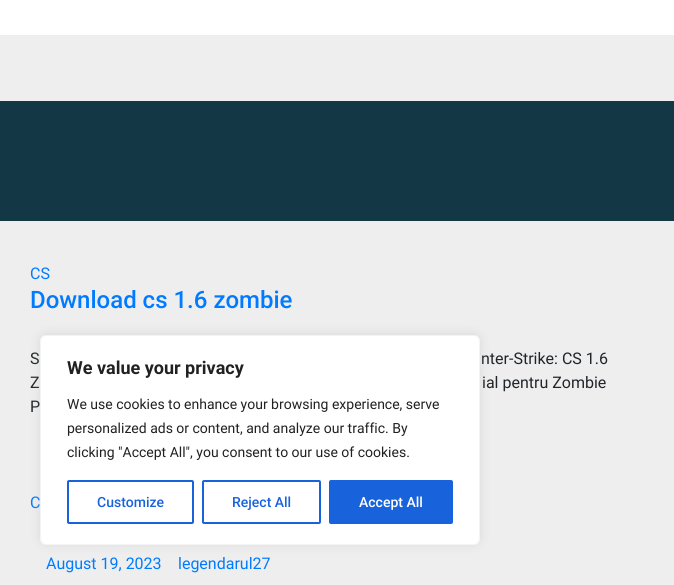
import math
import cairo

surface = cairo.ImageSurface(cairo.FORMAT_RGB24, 674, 585)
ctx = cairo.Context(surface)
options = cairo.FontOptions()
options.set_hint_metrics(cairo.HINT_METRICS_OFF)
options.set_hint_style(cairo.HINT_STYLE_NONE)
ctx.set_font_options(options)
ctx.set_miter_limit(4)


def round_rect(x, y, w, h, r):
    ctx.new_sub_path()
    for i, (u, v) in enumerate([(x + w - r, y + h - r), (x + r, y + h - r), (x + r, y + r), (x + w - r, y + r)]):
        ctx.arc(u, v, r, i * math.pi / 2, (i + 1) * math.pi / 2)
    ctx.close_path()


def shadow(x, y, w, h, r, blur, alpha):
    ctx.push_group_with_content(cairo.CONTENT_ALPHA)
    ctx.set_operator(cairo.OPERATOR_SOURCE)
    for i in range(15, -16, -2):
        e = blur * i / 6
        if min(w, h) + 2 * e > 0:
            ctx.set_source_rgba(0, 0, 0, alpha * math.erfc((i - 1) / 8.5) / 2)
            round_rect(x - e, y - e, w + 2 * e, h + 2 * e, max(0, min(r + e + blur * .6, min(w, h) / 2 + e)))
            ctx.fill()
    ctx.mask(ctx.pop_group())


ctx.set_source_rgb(0.933, 0.933, 0.933)
ctx.paint()
ctx.set_source_rgb(1, 1, 1)
ctx.rectangle(0, 0, 674, 35)
ctx.fill()
ctx.set_source_rgb(0.078, 0.216, 0.271)
ctx.rectangle(0, 101, 674, 120)
ctx.fill()
ctx.select_font_face("Roboto")
ctx.set_font_size(16)
ctx.set_source_rgb(0, 0.482, 1)
ctx.move_to(30, 279)
ctx.show_text("CS")
ctx.select_font_face("Roboto Medium")
ctx.set_font_size(24)
ctx.move_to(30, 308)
ctx.show_text("Download cs 1.6 zombie")
ctx.select_font_face("Roboto")
ctx.set_font_size(16)
ctx.set_source_rgb(0.129, 0.145, 0.161)
ctx.move_to(30, 364)
ctx.show_text("S")
ctx.move_to(481, 364)
ctx.show_text("nter-Strike: CS 1.6")
ctx.move_to(30, 388)
ctx.show_text("Z")
ctx.move_to(482, 388)
ctx.show_text("ial pentru Zombie")
ctx.move_to(30, 412)
ctx.show_text("P")
ctx.set_source_rgb(0, 0.482, 1)
ctx.move_to(30, 508)
ctx.show_text("C")
ctx.move_to(46, 569)
ctx.show_text("August 19, 2023")
ctx.move_to(178, 569)
ctx.show_text("legendarul27")
ctx.set_source_rgb(0.675, 0.671, 0.671)
shadow(40, 334, 440, 210, 6, 5, 0.3)
ctx.set_source_rgb(1, 1, 1)
round_rect(40.5, 335.5, 439, 209, 5.5)
ctx.fill_preserve()
ctx.set_source_rgb(0.957, 0.957, 0.957)
ctx.set_line_width(1)
ctx.stroke()
ctx.select_font_face("Roboto", cairo.FONT_SLANT_NORMAL, cairo.FONT_WEIGHT_BOLD)
ctx.set_font_size(18)
ctx.set_source_rgb(0.129, 0.129, 0.129)
ctx.move_to(67, 374)
ctx.show_text("We value your privacy")
ctx.select_font_face("Roboto")
ctx.set_font_size(14)
ctx.move_to(67, 409)
ctx.show_text("We use cookies to enhance your browsing experience, serve")
ctx.move_to(67, 433)
ctx.show_text("personalized ads or content, and analyze our traffic. By")
ctx.move_to(67, 457)
ctx.show_text("clicking \"Accept All\", you consent to our use of cookies.")
round_rect(68, 481, 125, 42, 1)
ctx.set_source_rgb(0.094, 0.388, 0.863)
ctx.set_line_width(2)
ctx.stroke()
ctx.select_font_face("Roboto Medium")
ctx.move_to(97, 507)
ctx.show_text("Customize")
round_rect(203, 481, 117, 42, 1)
ctx.stroke()
ctx.move_to(232, 507)
ctx.show_text("Reject All")
round_rect(330, 481, 122, 42, 1)
ctx.fill_preserve()
ctx.stroke()
ctx.set_source_rgb(1, 1, 1)
ctx.move_to(359, 507)
ctx.show_text("Accept All")
surface.write_to_png("page.png")
